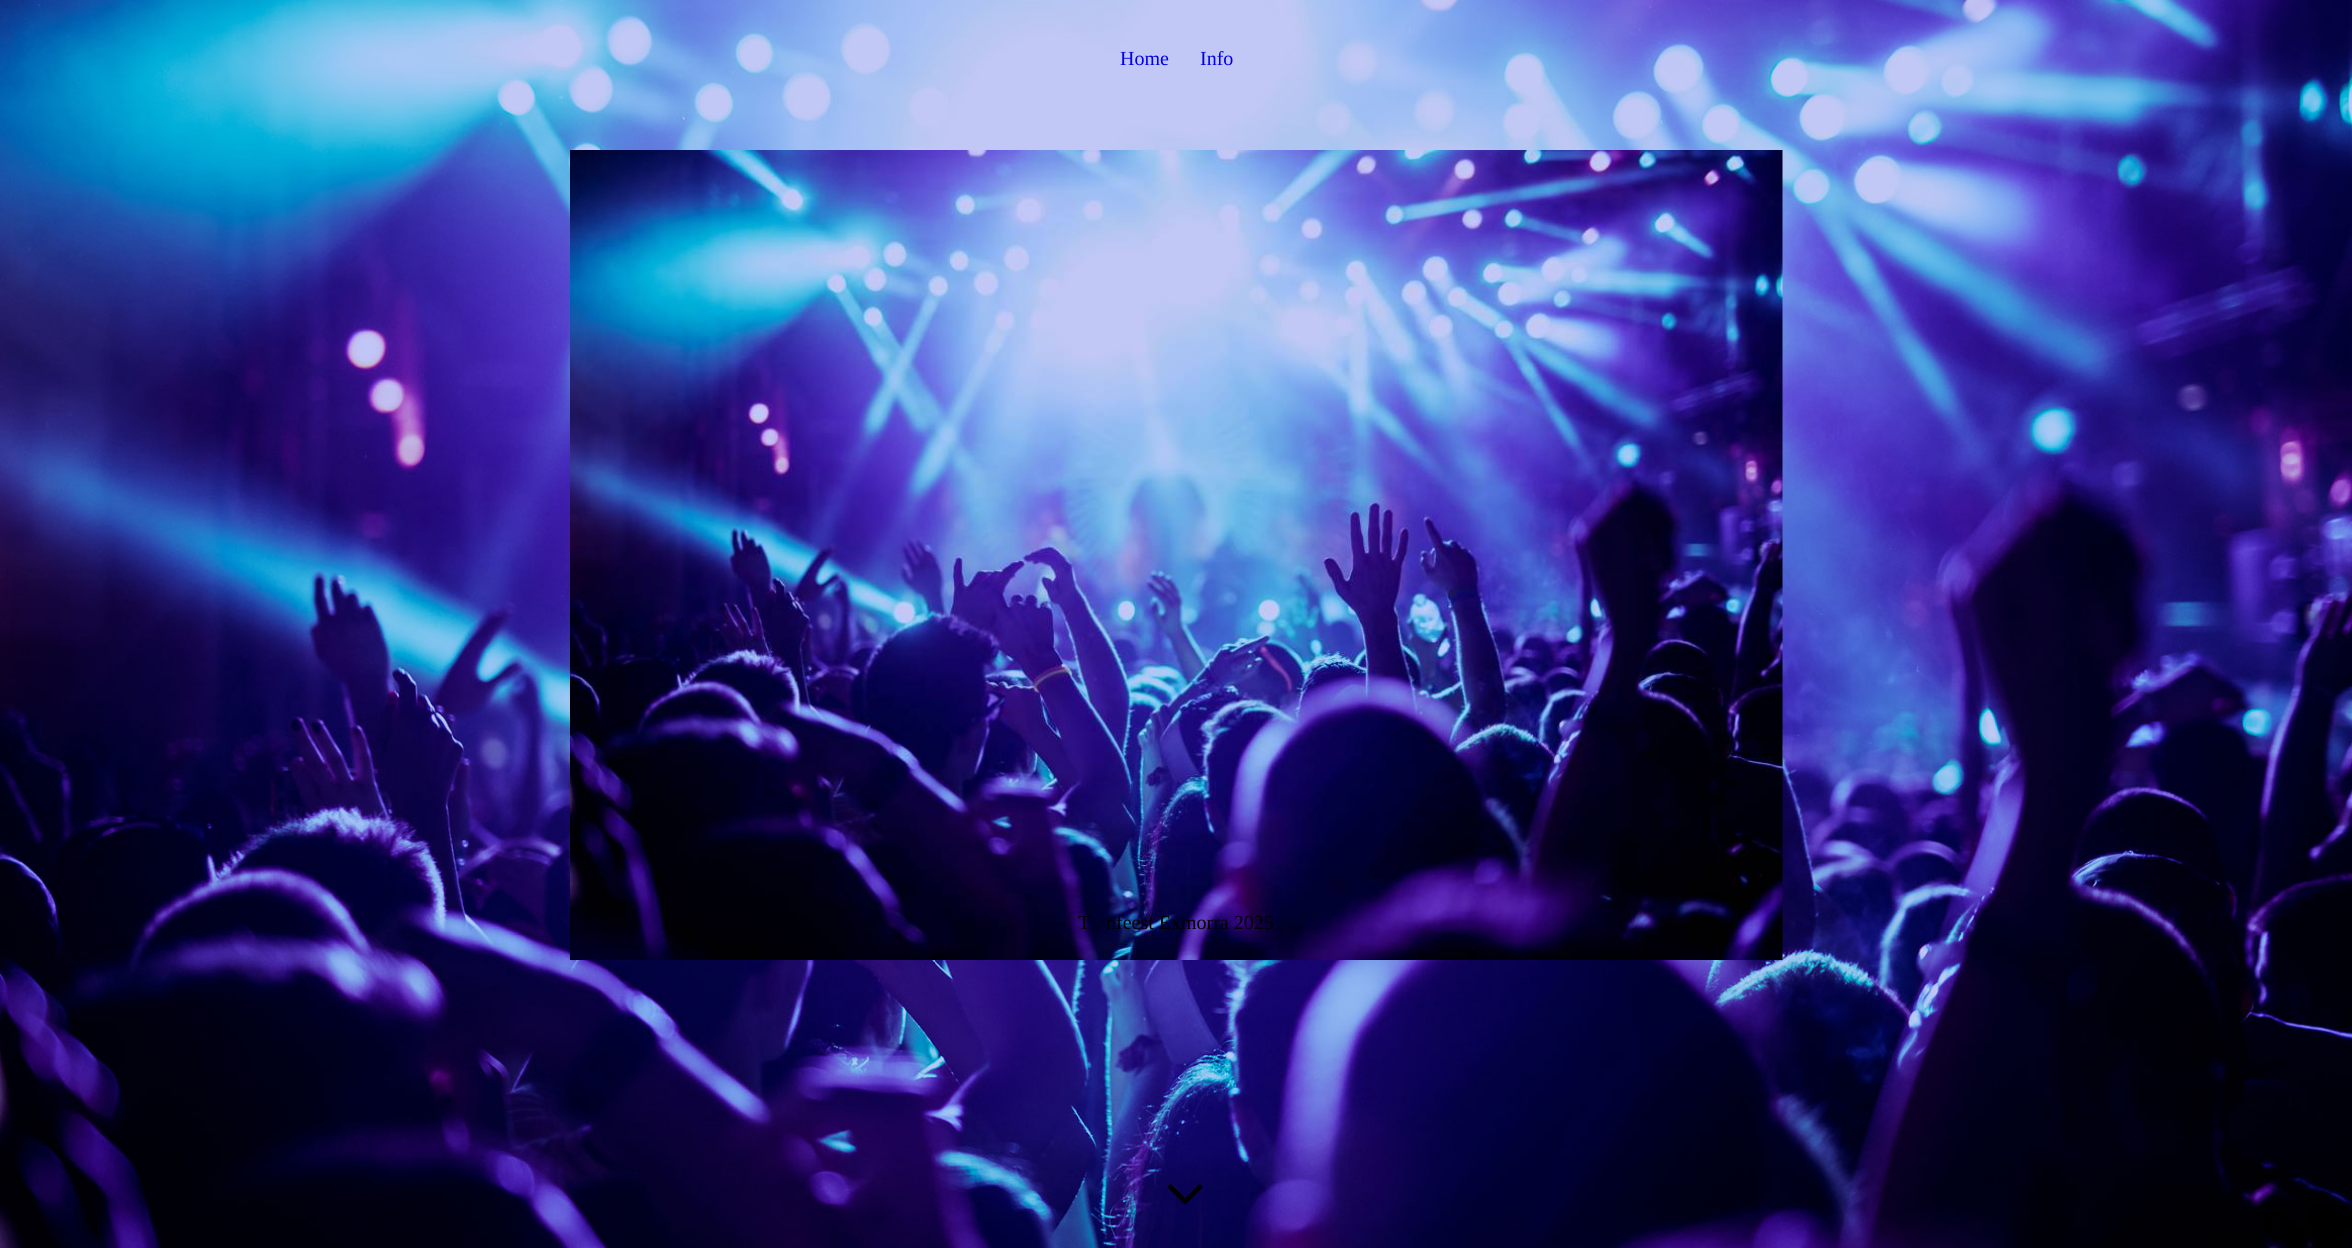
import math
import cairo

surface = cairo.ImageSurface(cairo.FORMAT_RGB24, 2352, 1248)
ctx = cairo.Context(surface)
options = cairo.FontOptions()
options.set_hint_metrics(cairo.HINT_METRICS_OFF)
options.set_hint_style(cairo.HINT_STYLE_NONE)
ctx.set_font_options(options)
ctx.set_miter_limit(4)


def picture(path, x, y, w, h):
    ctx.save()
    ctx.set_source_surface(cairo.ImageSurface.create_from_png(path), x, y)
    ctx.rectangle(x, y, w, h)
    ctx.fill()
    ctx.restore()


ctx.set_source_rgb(1, 1, 1)
ctx.paint()
picture("img1.png", 0, 0, 2352, 1248)
ctx.select_font_face("Liberation Serif")
ctx.set_font_size(20)
ctx.set_source_rgb(0, 0, 0.933)
ctx.move_to(1120, 65)
ctx.show_text("Home")
ctx.move_to(1200, 65)
ctx.show_text("Info")
picture("img2.png", 570, 150, 1213, 810)
ctx.set_source_rgb(0, 0, 0)
ctx.move_to(1078, 929)
ctx.show_text("T")
ctx.move_to(1106, 929)
ctx.show_text("nfeest Exmorra 2025")
picture("img3.png", 1167, 1184, 36, 21)
surface.write_to_png("page.png")
